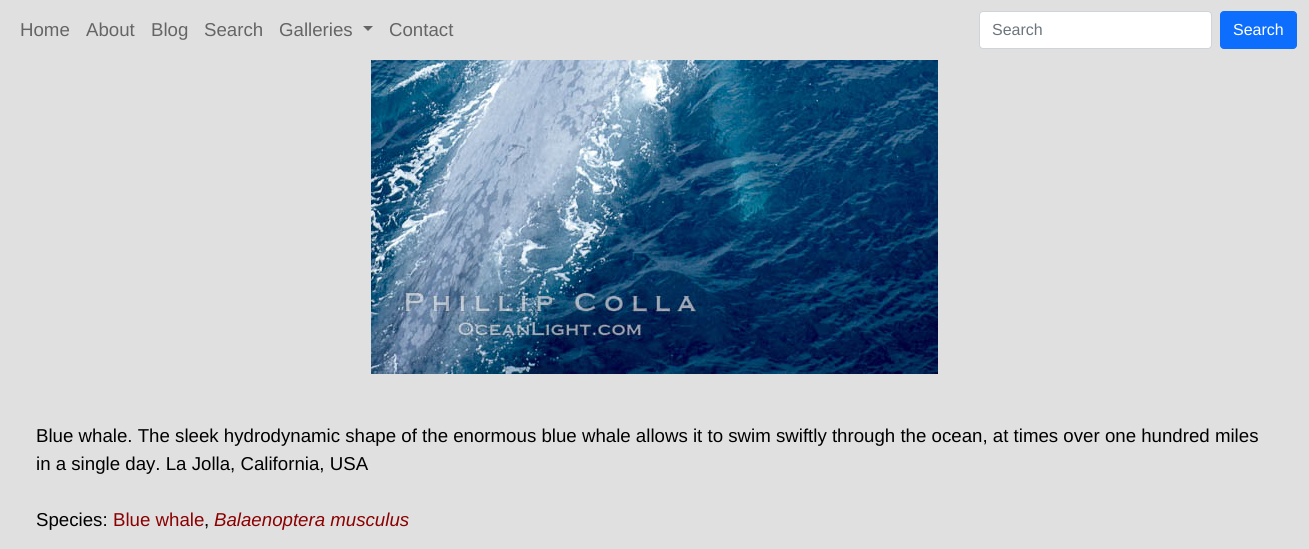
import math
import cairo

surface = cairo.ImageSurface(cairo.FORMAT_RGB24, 1309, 549)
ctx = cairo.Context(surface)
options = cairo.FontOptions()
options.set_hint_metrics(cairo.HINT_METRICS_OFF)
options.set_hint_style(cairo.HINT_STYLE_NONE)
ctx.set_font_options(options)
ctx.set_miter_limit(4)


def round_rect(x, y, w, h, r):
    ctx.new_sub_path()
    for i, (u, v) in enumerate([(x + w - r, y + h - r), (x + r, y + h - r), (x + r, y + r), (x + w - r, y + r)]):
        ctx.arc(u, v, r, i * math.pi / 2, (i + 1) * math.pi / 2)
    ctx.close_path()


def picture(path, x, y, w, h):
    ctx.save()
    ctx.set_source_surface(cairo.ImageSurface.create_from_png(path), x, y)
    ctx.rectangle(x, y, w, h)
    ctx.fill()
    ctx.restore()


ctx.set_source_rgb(0.878, 0.878, 0.878)
ctx.paint()
ctx.select_font_face("Liberation Sans")
ctx.set_font_size(18.67)
ctx.set_source_rgb(0.396, 0.396, 0.396)
ctx.move_to(20, 36)
ctx.show_text("Home")
ctx.move_to(86, 36)
ctx.show_text("About")
ctx.move_to(151, 36)
ctx.show_text("Blog")
ctx.move_to(204, 36)
ctx.show_text("Search")
ctx.move_to(279, 36)
ctx.show_text("Galleries")
ctx.new_path()
ctx.move_to(363, 26)
ctx.line_to(373, 26)
ctx.line_to(368, 31)
ctx.close_path()
ctx.fill()
ctx.move_to(389, 36)
ctx.show_text("Contact")
ctx.set_source_rgb(1, 1, 1)
round_rect(979.5, 11.5, 232, 37, 3.5)
ctx.fill_preserve()
ctx.set_source_rgb(0.808, 0.831, 0.855)
ctx.set_line_width(1)
ctx.stroke()
ctx.set_font_size(16)
ctx.set_source_rgb(0.424, 0.459, 0.49)
ctx.move_to(992, 35)
ctx.show_text("Search")
ctx.set_source_rgb(0.051, 0.431, 0.992)
round_rect(1220.5, 11.5, 76, 37, 3.5)
ctx.fill_preserve()
ctx.stroke()
ctx.set_source_rgb(1, 1, 1)
ctx.move_to(1233, 35)
ctx.show_text("Search")
picture("img1.png", 371, 60, 567, 314)
ctx.set_font_size(18.67)
ctx.set_source_rgb(0, 0, 0)
ctx.move_to(36, 442)
ctx.show_text("Blue whale. The sleek hydrodynamic shape of the enormous blue whale allows it to swim swiftly through the ocean, at times over one hundred miles")
ctx.move_to(36, 470)
ctx.show_text("in a single day. La Jolla, California, USA")
ctx.move_to(36, 526)
ctx.show_text("Species:")
ctx.set_source_rgb(0.545, 0, 0)
ctx.move_to(113, 526)
ctx.show_text("Blue whale")
ctx.set_source_rgb(0, 0, 0)
ctx.move_to(204, 526)
ctx.show_text(",")
ctx.select_font_face("Liberation Sans", cairo.FONT_SLANT_ITALIC)
ctx.set_source_rgb(0.545, 0, 0)
ctx.move_to(214, 526)
ctx.show_text("Balaenoptera musculus")
surface.write_to_png("page.png")
